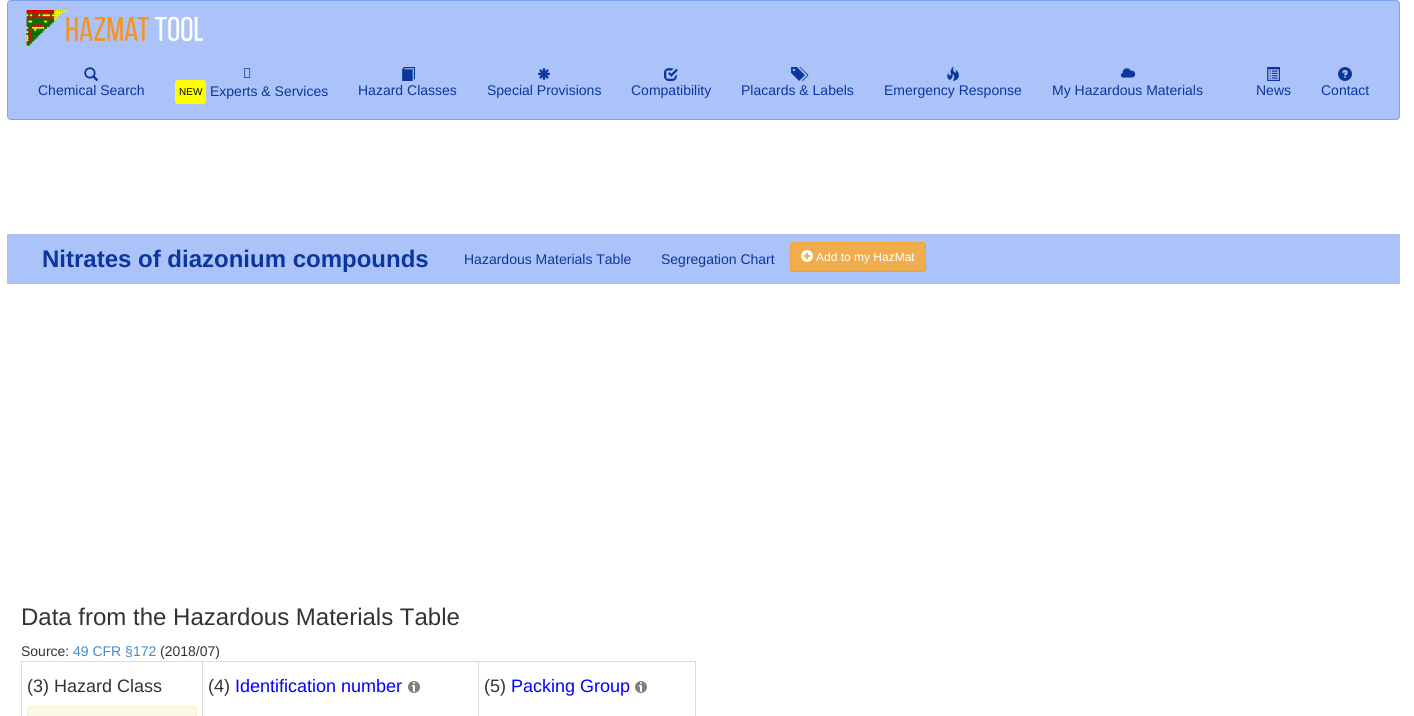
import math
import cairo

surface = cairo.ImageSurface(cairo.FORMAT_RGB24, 1414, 716)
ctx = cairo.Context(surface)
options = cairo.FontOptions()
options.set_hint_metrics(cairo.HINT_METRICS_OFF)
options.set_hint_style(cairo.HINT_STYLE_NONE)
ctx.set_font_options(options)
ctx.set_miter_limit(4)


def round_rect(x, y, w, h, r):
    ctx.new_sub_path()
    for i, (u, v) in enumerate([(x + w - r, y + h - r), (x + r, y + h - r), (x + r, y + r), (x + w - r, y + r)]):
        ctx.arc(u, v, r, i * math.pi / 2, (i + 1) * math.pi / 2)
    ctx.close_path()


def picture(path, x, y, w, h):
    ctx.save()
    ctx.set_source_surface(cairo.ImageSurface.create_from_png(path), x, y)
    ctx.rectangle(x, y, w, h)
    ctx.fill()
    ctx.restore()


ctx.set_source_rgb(1, 1, 1)
ctx.paint()
ctx.set_source_rgb(0.675, 0.765, 0.976)
round_rect(7.5, 0.5, 1392, 119, 3.5)
ctx.fill_preserve()
ctx.set_source_rgb(0.486, 0.631, 0.965)
ctx.set_line_width(1)
ctx.stroke()
picture("img1.png", 26, 10, 177, 37)
picture("img2.png", 84, 67, 15, 15)
ctx.select_font_face("Liberation Sans")
ctx.set_font_size(14)
ctx.set_source_rgb(0.043, 0.212, 0.608)
ctx.move_to(38, 95)
ctx.show_text("Chemical Search")
picture("img3.png", 244, 68, 7, 10)
ctx.set_source_rgb(1, 1, 0)
round_rect(175, 80, 31, 24, 3)
ctx.fill()
ctx.set_font_size(10)
ctx.set_source_rgb(0, 0, 0)
ctx.move_to(179, 95)
ctx.show_text("NEW")
ctx.set_font_size(14)
ctx.set_source_rgb(0.043, 0.212, 0.608)
ctx.move_to(210, 96)
ctx.show_text("Experts & Services")
picture("img4.png", 402, 67, 13, 14)
ctx.move_to(358, 95)
ctx.show_text("Hazard Classes")
picture("img5.png", 538, 68, 12, 12)
ctx.move_to(487, 95)
ctx.show_text("Special Provisions")
picture("img6.png", 664, 68, 14, 13)
ctx.move_to(631, 95)
ctx.show_text("Compatibility")
picture("img7.png", 791, 67, 18, 14)
ctx.move_to(741, 95)
ctx.show_text("Placards & Labels")
picture("img8.png", 947, 66, 12, 15)
ctx.move_to(884, 95)
ctx.show_text("Emergency Response")
picture("img9.png", 1120, 68, 16, 10)
ctx.move_to(1052, 95)
ctx.show_text("My Hazardous Materials")
picture("img10.png", 1267, 67, 13, 14)
ctx.move_to(1256, 95)
ctx.show_text("News")
picture("img11.png", 1338, 67, 14, 14)
ctx.move_to(1321, 95)
ctx.show_text("Contact")
ctx.set_source_rgb(0.675, 0.765, 0.976)
ctx.rectangle(7, 234, 1393, 50)
ctx.fill()
ctx.select_font_face("Liberation Sans", cairo.FONT_SLANT_NORMAL, cairo.FONT_WEIGHT_BOLD)
ctx.set_font_size(24)
ctx.set_source_rgb(0.043, 0.212, 0.608)
ctx.move_to(42, 267)
ctx.show_text("Nitrates of diazonium compounds")
ctx.select_font_face("Liberation Sans")
ctx.set_font_size(14)
ctx.move_to(464, 264)
ctx.show_text("Hazardous Materials Table")
ctx.move_to(661, 264)
ctx.show_text("Segregation Chart")
ctx.set_source_rgb(0.941, 0.678, 0.306)
round_rect(790.5, 242.5, 135, 29, 2.5)
ctx.fill_preserve()
ctx.set_source_rgb(0.933, 0.635, 0.212)
ctx.stroke()
picture("img12.png", 801, 250, 12, 12)
ctx.set_font_size(12)
ctx.set_source_rgb(1, 1, 1)
ctx.move_to(816, 261)
ctx.show_text("Add to my HazMat")
ctx.set_font_size(24)
ctx.set_source_rgb(0.2, 0.2, 0.2)
ctx.move_to(21, 625)
ctx.show_text("Data from the Hazardous Materials Table")
ctx.set_font_size(14)
ctx.move_to(21, 656)
ctx.show_text("Source:")
ctx.set_source_rgb(0.259, 0.545, 0.792)
ctx.move_to(73, 656)
ctx.show_text("49 CFR §172")
ctx.set_source_rgb(0.2, 0.2, 0.2)
ctx.move_to(160, 656)
ctx.show_text("(2018/07)")
ctx.set_source_rgb(0.867, 0.867, 0.867)
ctx.rectangle(21, 661, 675, 1)
ctx.fill()
ctx.rectangle(695, 661, 1, 55)
ctx.fill()
ctx.rectangle(21, 661, 1, 55)
ctx.fill()
ctx.set_font_size(18)
ctx.set_source_rgb(0.2, 0.2, 0.2)
ctx.move_to(27, 692)
ctx.show_text("(3) Hazard Class")
ctx.set_source_rgb(0.988, 0.973, 0.89)
round_rect(27.5, 706.5, 169, 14, 3.5)
ctx.fill_preserve()
ctx.set_source_rgb(0.98, 0.922, 0.8)
ctx.stroke()
ctx.set_source_rgb(0.867, 0.867, 0.867)
ctx.rectangle(202, 661, 1, 55)
ctx.fill()
ctx.set_source_rgb(0.2, 0.2, 0.2)
ctx.move_to(208, 692)
ctx.show_text("(4)")
ctx.set_source_rgb(0, 0, 1)
ctx.move_to(235, 692)
ctx.show_text("Identification number")
picture("img13.png", 408, 681, 12, 12)
ctx.set_source_rgb(0.867, 0.867, 0.867)
ctx.rectangle(478, 661, 1, 55)
ctx.fill()
ctx.set_source_rgb(0.2, 0.2, 0.2)
ctx.move_to(484, 692)
ctx.show_text("(5)")
ctx.set_source_rgb(0, 0, 1)
ctx.move_to(511, 692)
ctx.show_text("Packing Group")
picture("img13.png", 635, 681, 12, 12)
surface.write_to_png("page.png")
